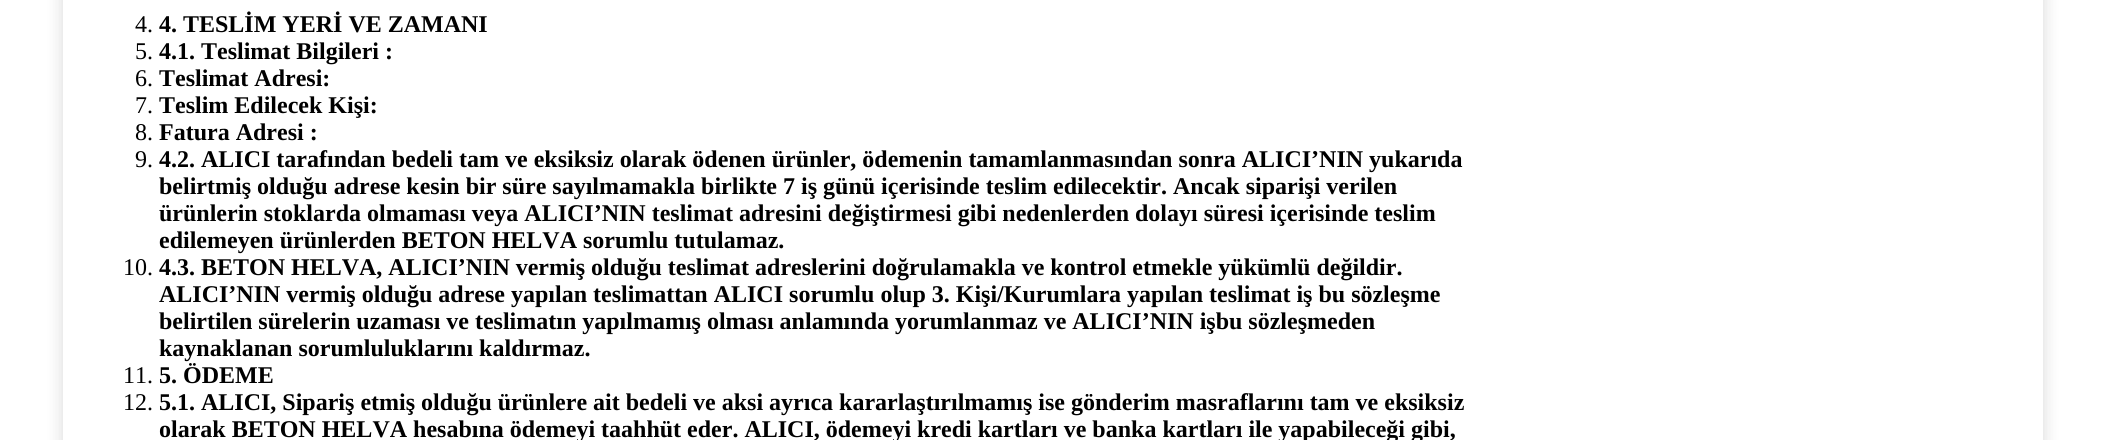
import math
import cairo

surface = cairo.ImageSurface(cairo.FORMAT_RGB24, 2106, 440)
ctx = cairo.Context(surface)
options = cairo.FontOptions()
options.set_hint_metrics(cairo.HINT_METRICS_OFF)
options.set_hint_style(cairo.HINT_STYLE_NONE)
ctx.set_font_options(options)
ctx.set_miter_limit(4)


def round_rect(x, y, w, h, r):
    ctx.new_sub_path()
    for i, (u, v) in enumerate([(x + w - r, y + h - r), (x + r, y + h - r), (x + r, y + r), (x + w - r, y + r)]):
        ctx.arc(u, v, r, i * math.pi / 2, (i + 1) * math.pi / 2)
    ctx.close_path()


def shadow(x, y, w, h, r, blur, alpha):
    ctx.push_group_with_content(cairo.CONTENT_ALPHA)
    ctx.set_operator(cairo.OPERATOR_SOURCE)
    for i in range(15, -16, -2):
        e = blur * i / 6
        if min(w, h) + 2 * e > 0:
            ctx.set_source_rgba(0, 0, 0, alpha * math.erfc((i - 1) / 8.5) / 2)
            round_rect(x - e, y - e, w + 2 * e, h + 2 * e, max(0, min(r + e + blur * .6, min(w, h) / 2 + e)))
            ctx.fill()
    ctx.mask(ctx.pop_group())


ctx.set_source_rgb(1, 1, 1)
ctx.paint()
ctx.save()
ctx.set_fill_rule(cairo.FILL_RULE_EVEN_ODD)
ctx.new_path()
ctx.move_to(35, 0)
ctx.line_to(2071, 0)
ctx.line_to(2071, 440)
ctx.line_to(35, 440)
ctx.close_path()
ctx.move_to(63, -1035)
ctx.line_to(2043, -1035)
ctx.line_to(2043, 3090)
ctx.line_to(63, 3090)
ctx.close_path()
ctx.clip()
ctx.set_source_rgb(0, 0, 0)
shadow(63, -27, 1980, 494, 0, 9, 0.15)
ctx.restore()
ctx.select_font_face("Liberation Serif")
ctx.set_font_size(24)
ctx.set_source_rgb(0, 0, 0)
ctx.move_to(135, 32)
ctx.show_text("4.")
ctx.select_font_face("Liberation Serif", cairo.FONT_SLANT_NORMAL, cairo.FONT_WEIGHT_BOLD)
ctx.move_to(159, 32)
ctx.show_text("4. TESLİM YERİ VE ZAMANI")
ctx.select_font_face("Liberation Serif")
ctx.move_to(135, 59)
ctx.show_text("5.")
ctx.select_font_face("Liberation Serif", cairo.FONT_SLANT_NORMAL, cairo.FONT_WEIGHT_BOLD)
ctx.move_to(159, 59)
ctx.show_text("4.1. Teslimat Bilgileri :")
ctx.select_font_face("Liberation Serif")
ctx.move_to(135, 86)
ctx.show_text("6.")
ctx.select_font_face("Liberation Serif", cairo.FONT_SLANT_NORMAL, cairo.FONT_WEIGHT_BOLD)
ctx.move_to(159, 86)
ctx.show_text("Teslimat Adresi:")
ctx.select_font_face("Liberation Serif")
ctx.move_to(135, 113)
ctx.show_text("7.")
ctx.select_font_face("Liberation Serif", cairo.FONT_SLANT_NORMAL, cairo.FONT_WEIGHT_BOLD)
ctx.move_to(159, 113)
ctx.show_text("Teslim Edilecek Kişi:")
ctx.select_font_face("Liberation Serif")
ctx.move_to(135, 140)
ctx.show_text("8.")
ctx.select_font_face("Liberation Serif", cairo.FONT_SLANT_NORMAL, cairo.FONT_WEIGHT_BOLD)
ctx.move_to(159, 140)
ctx.show_text("Fatura Adresi :")
ctx.select_font_face("Liberation Serif")
ctx.move_to(135, 167)
ctx.show_text("9.")
ctx.select_font_face("Liberation Serif", cairo.FONT_SLANT_NORMAL, cairo.FONT_WEIGHT_BOLD)
ctx.move_to(159, 167)
ctx.show_text("4.2. ALICI tarafından bedeli tam ve eksiksiz olarak ödenen ürünler, ödemenin tamamlanmasından sonra ALICI’NIN yukarıda")
ctx.move_to(159, 194)
ctx.show_text("belirtmiş olduğu adrese kesin bir süre sayılmamakla birlikte 7 iş günü içerisinde teslim edilecektir. Ancak siparişi verilen")
ctx.move_to(159, 221)
ctx.show_text("ürünlerin stoklarda olmaması veya ALICI’NIN teslimat adresini değiştirmesi gibi nedenlerden dolayı süresi içerisinde teslim")
ctx.move_to(159, 248)
ctx.show_text("edilemeyen ürünlerden BETON HELVA sorumlu tutulamaz.")
ctx.select_font_face("Liberation Serif")
ctx.move_to(123, 275)
ctx.show_text("10.")
ctx.select_font_face("Liberation Serif", cairo.FONT_SLANT_NORMAL, cairo.FONT_WEIGHT_BOLD)
ctx.move_to(159, 275)
ctx.show_text("4.3. BETON HELVA, ALICI’NIN vermiş olduğu teslimat adreslerini doğrulamakla ve kontrol etmekle yükümlü değildir.")
ctx.move_to(159, 302)
ctx.show_text("ALICI’NIN vermiş olduğu adrese yapılan teslimattan ALICI sorumlu olup 3. Kişi/Kurumlara yapılan teslimat iş bu sözleşme")
ctx.move_to(159, 329)
ctx.show_text("belirtilen sürelerin uzaması ve teslimatın yapılmamış olması anlamında yorumlanmaz ve ALICI’NIN işbu sözleşmeden")
ctx.move_to(159, 356)
ctx.show_text("kaynaklanan sorumluluklarını kaldırmaz.")
ctx.select_font_face("Liberation Serif")
ctx.move_to(123, 383)
ctx.show_text("11.")
ctx.select_font_face("Liberation Serif", cairo.FONT_SLANT_NORMAL, cairo.FONT_WEIGHT_BOLD)
ctx.move_to(159, 383)
ctx.show_text("5. ÖDEME")
ctx.select_font_face("Liberation Serif")
ctx.move_to(123, 410)
ctx.show_text("12.")
ctx.select_font_face("Liberation Serif", cairo.FONT_SLANT_NORMAL, cairo.FONT_WEIGHT_BOLD)
ctx.move_to(159, 410)
ctx.show_text("5.1. ALICI, Sipariş etmiş olduğu ürünlere ait bedeli ve aksi ayrıca kararlaştırılmamış ise gönderim masraflarını tam ve eksiksiz")
ctx.move_to(159, 437)
ctx.show_text("olarak BETON HELVA hesabına ödemeyi taahhüt eder. ALICI, ödemeyi kredi kartları ve banka kartları ile yapabileceği gibi,")
surface.write_to_png("page.png")
